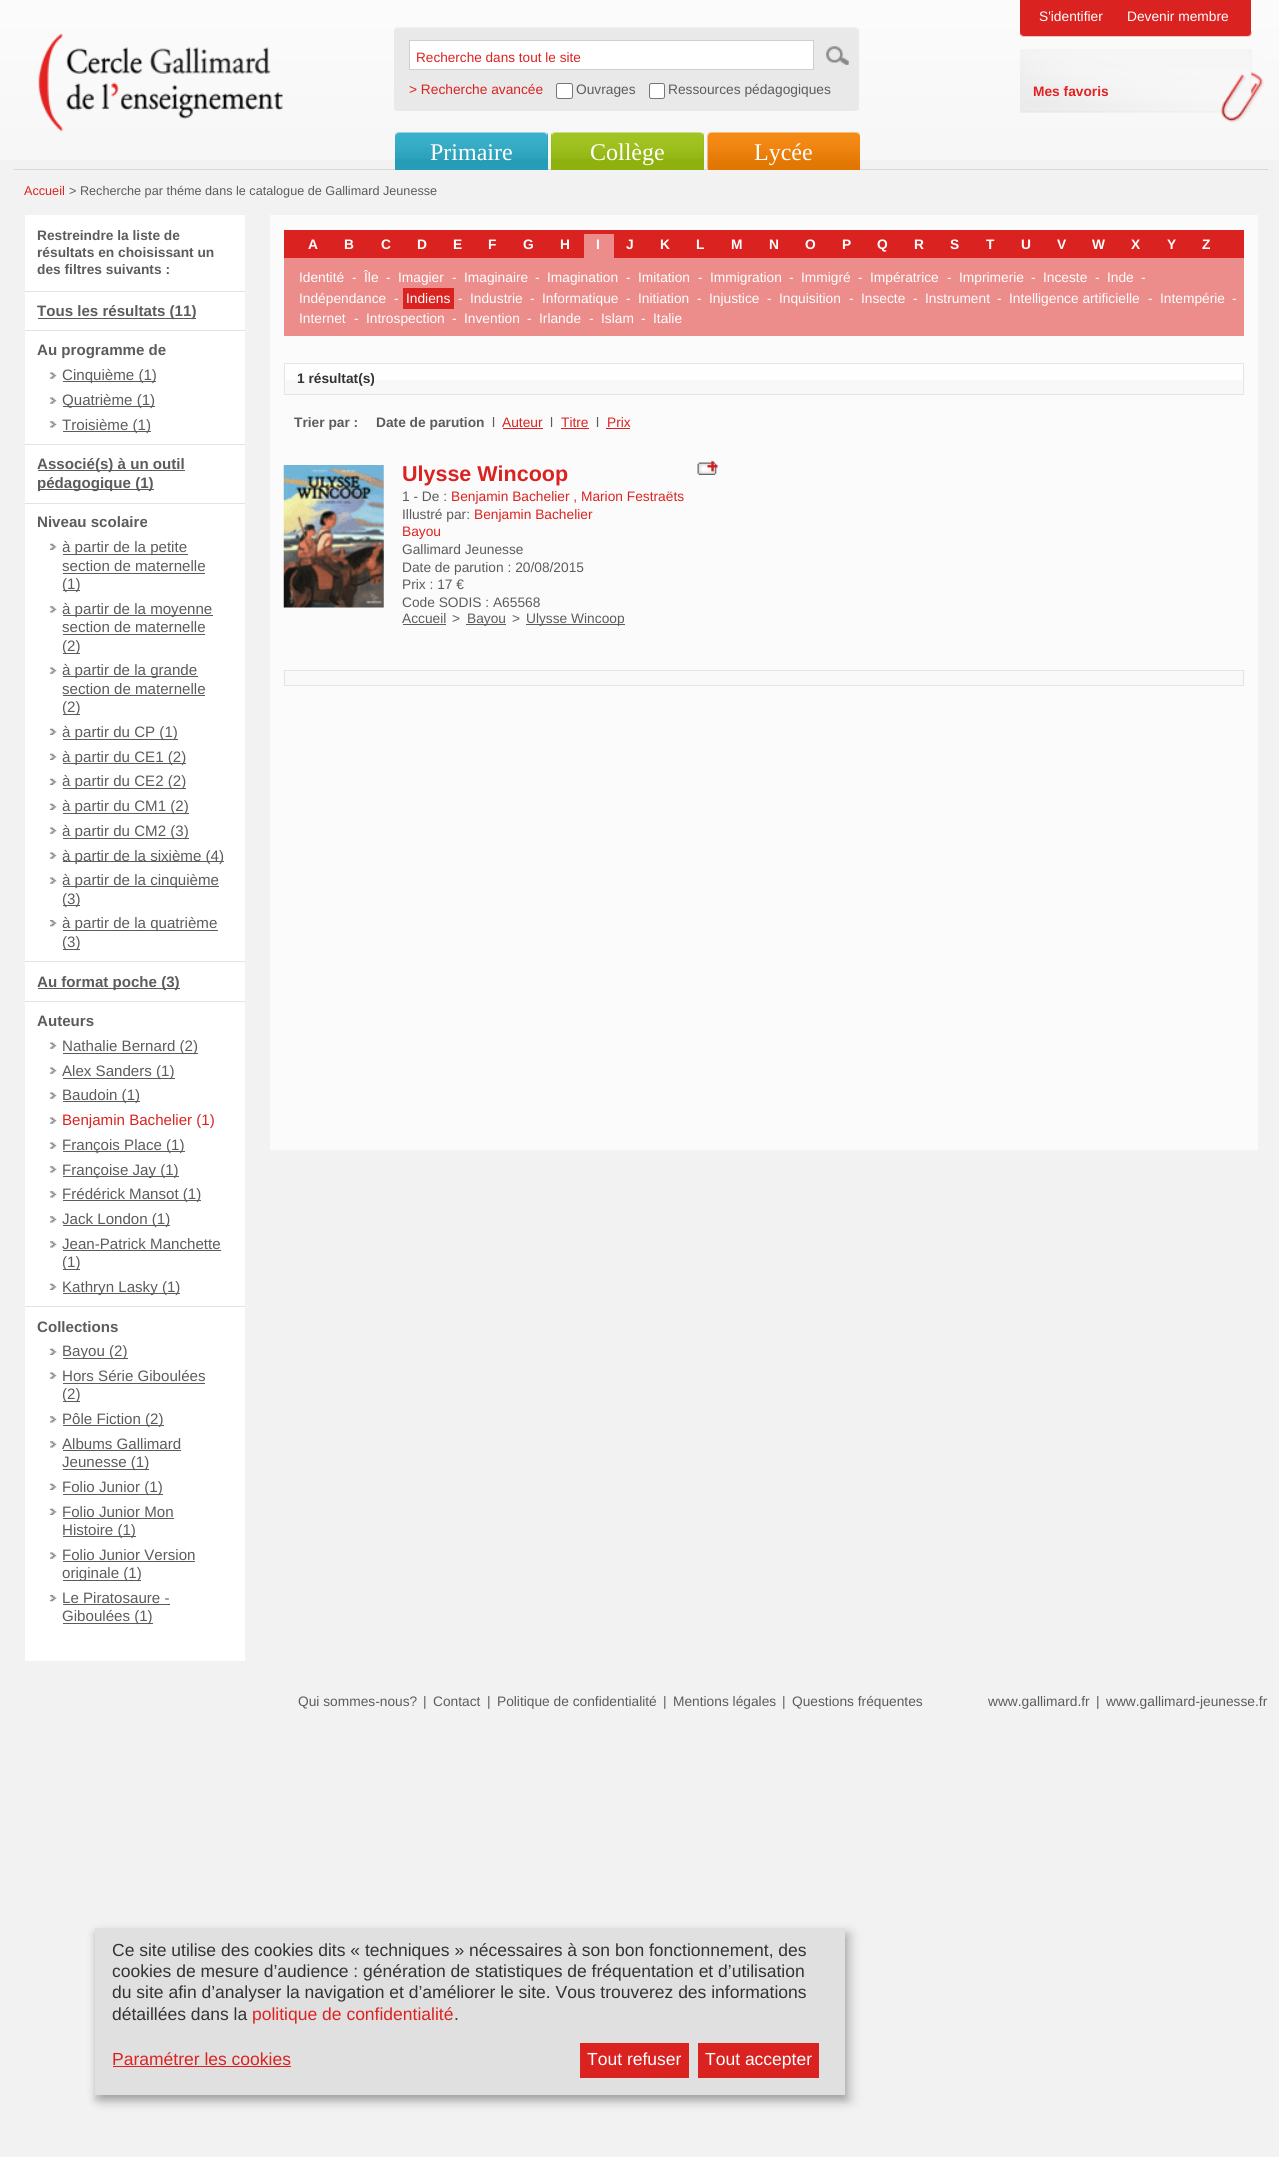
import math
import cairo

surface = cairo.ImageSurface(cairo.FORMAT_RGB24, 1279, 2157)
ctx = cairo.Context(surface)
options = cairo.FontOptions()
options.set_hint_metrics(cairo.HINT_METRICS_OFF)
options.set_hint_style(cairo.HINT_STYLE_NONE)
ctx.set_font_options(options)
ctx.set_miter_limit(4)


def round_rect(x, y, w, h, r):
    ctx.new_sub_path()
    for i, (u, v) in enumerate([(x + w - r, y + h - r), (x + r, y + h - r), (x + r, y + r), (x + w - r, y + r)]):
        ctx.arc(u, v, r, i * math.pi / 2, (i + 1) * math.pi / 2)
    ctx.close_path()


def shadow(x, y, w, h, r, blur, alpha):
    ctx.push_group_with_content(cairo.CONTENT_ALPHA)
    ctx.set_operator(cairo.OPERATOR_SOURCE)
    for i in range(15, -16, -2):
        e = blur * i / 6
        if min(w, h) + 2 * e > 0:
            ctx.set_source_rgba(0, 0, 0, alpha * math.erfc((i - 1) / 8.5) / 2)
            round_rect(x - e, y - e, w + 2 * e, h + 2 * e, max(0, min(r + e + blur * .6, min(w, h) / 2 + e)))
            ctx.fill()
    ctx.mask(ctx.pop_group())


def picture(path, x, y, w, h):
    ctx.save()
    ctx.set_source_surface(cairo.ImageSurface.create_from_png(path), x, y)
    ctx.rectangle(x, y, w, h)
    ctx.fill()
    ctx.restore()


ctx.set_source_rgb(0.949, 0.949, 0.949)
ctx.paint()
picture("img1.png", 0, 0, 1279, 160)
picture("img2.png", 38, 33, 245, 99)
ctx.set_source_rgb(0.914, 0.914, 0.914)
ctx.rectangle(394, 28, 465, 83)
ctx.fill()
picture("img3.png", 394, 27, 465, 3)
picture("img4.png", 394, 109, 465, 2)
ctx.set_source_rgb(1, 1, 1)
ctx.rectangle(409.5, 40.5, 404, 29)
ctx.fill_preserve()
ctx.set_source_rgb(0.812, 0.812, 0.812)
ctx.set_line_width(1)
ctx.stroke()
ctx.select_font_face("Liberation Sans")
ctx.set_font_size(13.6)
ctx.set_source_rgb(0.855, 0.137, 0.129)
ctx.move_to(416, 62)
ctx.show_text("Recherche dans tout le site")
picture("img5.png", 826, 46, 23, 19)
ctx.set_font_size(13.75)
ctx.move_to(409, 94)
ctx.show_text("> Recherche avancée")
ctx.set_source_rgb(1, 1, 1)
round_rect(556.5, 83.5, 16, 15, 2)
ctx.fill_preserve()
ctx.set_source_rgb(0.463, 0.463, 0.463)
ctx.stroke()
ctx.set_source_rgb(0.361, 0.361, 0.361)
ctx.move_to(576, 94)
ctx.show_text("Ouvrages")
ctx.set_source_rgb(1, 1, 1)
round_rect(649.5, 83.5, 15, 15, 2)
ctx.fill_preserve()
ctx.set_source_rgb(0.463, 0.463, 0.463)
ctx.stroke()
ctx.set_source_rgb(0.361, 0.361, 0.361)
ctx.move_to(668, 94)
ctx.show_text("Ressources pédagogiques")
ctx.set_source_rgb(0.855, 0.137, 0.129)
ctx.rectangle(1020, 0, 231, 32)
ctx.fill()
picture("img6.png", 1020, 31, 232, 6)
ctx.set_source_rgb(1, 1, 1)
ctx.move_to(1039, 21)
ctx.show_text("S'identifier")
ctx.move_to(1127, 21)
ctx.show_text("Devenir membre")
picture("img7.png", 1020, 49, 244, 74)
ctx.select_font_face("Liberation Sans", cairo.FONT_SLANT_NORMAL, cairo.FONT_WEIGHT_BOLD)
ctx.set_source_rgb(0.882, 0.133, 0.129)
ctx.move_to(1033, 96)
ctx.show_text("Mes favoris")
ctx.set_source_rgb(0.843, 0.843, 0.843)
ctx.rectangle(14, 169, 1254, 1)
ctx.fill()
ctx.set_source_rgb(0.153, 0.612, 0.714)
ctx.rectangle(395, 133, 153, 37)
ctx.fill()
picture("img8.png", 395, 132, 153, 27)
ctx.select_font_face("Liberation Serif")
ctx.set_font_size(24)
ctx.set_source_rgb(1, 1, 1)
ctx.move_to(430, 160)
ctx.show_text("Primaire")
ctx.set_source_rgb(0.561, 0.694, 0.059)
ctx.rectangle(551, 133, 153, 37)
ctx.fill()
picture("img9.png", 551, 132, 153, 27)
ctx.set_source_rgb(1, 1, 1)
ctx.move_to(590, 160)
ctx.show_text("Collège")
ctx.set_source_rgb(0.886, 0.463, 0.008)
ctx.rectangle(708, 168, 152, 2)
ctx.fill()
picture("img10.png", 707, 132, 153, 37)
ctx.set_source_rgb(1, 1, 1)
ctx.move_to(754, 160)
ctx.show_text("Lycée")
ctx.select_font_face("Liberation Sans")
ctx.set_font_size(12.65)
ctx.set_source_rgb(0.855, 0.137, 0.129)
ctx.move_to(24, 195)
ctx.show_text("Accueil")
ctx.set_source_rgb(0.361, 0.361, 0.361)
ctx.move_to(69, 195)
ctx.show_text("> Recherche par théme dans le catalogue de Gallimard Jeunesse")
ctx.set_source_rgb(1, 1, 1)
ctx.rectangle(25, 215, 220, 1446)
ctx.fill()
ctx.select_font_face("Liberation Sans", cairo.FONT_SLANT_NORMAL, cairo.FONT_WEIGHT_BOLD)
ctx.set_font_size(13.75)
ctx.set_source_rgb(0.361, 0.361, 0.361)
ctx.move_to(37, 240)
ctx.show_text("Restreindre la liste de")
ctx.move_to(37, 257)
ctx.show_text("résultats en choisissant un")
ctx.move_to(37, 274)
ctx.show_text("des filtres suivants :")
ctx.set_source_rgb(0.89, 0.89, 0.89)
ctx.rectangle(25, 291, 220, 1)
ctx.fill()
ctx.set_source_rgb(0.361, 0.361, 0.361)
ctx.rectangle(38, 318, 158, 1)
ctx.fill()
ctx.set_font_size(15.1)
ctx.move_to(37, 316)
ctx.show_text("Tous les résultats (11)")
ctx.set_source_rgb(0.89, 0.89, 0.89)
ctx.rectangle(25, 330, 220, 1)
ctx.fill()
ctx.set_source_rgb(0.361, 0.361, 0.361)
ctx.move_to(37, 355)
ctx.show_text("Au programme de")
picture("img11.png", 50, 372, 7, 7)
ctx.rectangle(63, 381, 93, 1)
ctx.fill()
ctx.select_font_face("Liberation Sans")
ctx.move_to(62, 380)
ctx.show_text("Cinquième (1)")
picture("img11.png", 50, 397, 7, 7)
ctx.rectangle(63, 406, 92, 1)
ctx.fill()
ctx.move_to(62, 405)
ctx.show_text("Quatrième (1)")
picture("img12.png", 50, 421, 7, 7)
ctx.rectangle(63, 431, 88, 1)
ctx.fill()
ctx.move_to(62, 430)
ctx.show_text("Troisième (1)")
ctx.set_source_rgb(0.89, 0.89, 0.89)
ctx.rectangle(25, 444, 220, 1)
ctx.fill()
ctx.set_source_rgb(0.361, 0.361, 0.361)
ctx.rectangle(38, 470, 147, 1)
ctx.fill()
ctx.select_font_face("Liberation Sans", cairo.FONT_SLANT_NORMAL, cairo.FONT_WEIGHT_BOLD)
ctx.move_to(37, 469)
ctx.show_text("Associé(s) à un outil")
ctx.rectangle(38, 489, 116, 1)
ctx.fill()
ctx.move_to(37, 488)
ctx.show_text("pédagogique (1)")
ctx.set_source_rgb(0.89, 0.89, 0.89)
ctx.rectangle(25, 503, 220, 1)
ctx.fill()
ctx.set_source_rgb(0.361, 0.361, 0.361)
ctx.move_to(37, 527)
ctx.show_text("Niveau scolaire")
picture("img13.png", 50, 543, 7, 7)
ctx.rectangle(63, 554, 125, 1)
ctx.fill()
ctx.select_font_face("Liberation Sans")
ctx.move_to(62, 552)
ctx.show_text("à partir de la petite")
ctx.move_to(62, 571)
ctx.show_text("section de maternelle")
ctx.rectangle(63, 573, 142, 1)
ctx.fill()
ctx.rectangle(63, 590, 17, 1)
ctx.fill()
ctx.move_to(62, 589)
ctx.show_text("(1)")
picture("img12.png", 50, 606, 7, 7)
ctx.rectangle(63, 615, 150, 1)
ctx.fill()
ctx.move_to(62, 614)
ctx.show_text("à partir de la moyenne")
ctx.move_to(62, 632)
ctx.show_text("section de maternelle")
ctx.rectangle(63, 634, 142, 1)
ctx.fill()
ctx.rectangle(63, 653, 17, 1)
ctx.fill()
ctx.move_to(62, 651)
ctx.show_text("(2)")
picture("img11.png", 50, 667, 7, 7)
ctx.rectangle(63, 676, 135, 1)
ctx.fill()
ctx.move_to(62, 675)
ctx.show_text("à partir de la grande")
ctx.move_to(62, 694)
ctx.show_text("section de maternelle")
ctx.rectangle(63, 695, 142, 1)
ctx.fill()
ctx.rectangle(63, 714, 17, 1)
ctx.fill()
ctx.move_to(62, 712)
ctx.show_text("(2)")
picture("img13.png", 50, 728, 7, 7)
ctx.rectangle(63, 739, 115, 1)
ctx.fill()
ctx.move_to(62, 737)
ctx.show_text("à partir du CP (1)")
picture("img13.png", 50, 753, 7, 7)
ctx.rectangle(63, 763, 123, 1)
ctx.fill()
ctx.move_to(62, 762)
ctx.show_text("à partir du CE1 (2)")
picture("img14.png", 50, 778, 7, 7)
ctx.rectangle(63, 788, 123, 1)
ctx.fill()
ctx.move_to(62, 786)
ctx.show_text("à partir du CE2 (2)")
picture("img13.png", 50, 803, 7, 7)
ctx.rectangle(63, 813, 126, 1)
ctx.fill()
ctx.move_to(62, 811)
ctx.show_text("à partir du CM1 (2)")
picture("img11.png", 50, 827, 7, 7)
ctx.rectangle(63, 838, 126, 1)
ctx.fill()
ctx.move_to(62, 836)
ctx.show_text("à partir du CM2 (3)")
picture("img11.png", 50, 852, 7, 7)
ctx.rectangle(63, 861, 161, 1)
ctx.fill()
ctx.move_to(62, 861)
ctx.show_text("à partir de la sixième (4)")
picture("img11.png", 50, 877, 7, 7)
ctx.rectangle(63, 886, 156, 1)
ctx.fill()
ctx.move_to(62, 885)
ctx.show_text("à partir de la cinquième")
ctx.rectangle(63, 905, 17, 1)
ctx.fill()
ctx.move_to(62, 904)
ctx.show_text("(3)")
picture("img15.png", 50, 920, 7, 7)
ctx.rectangle(63, 930, 155, 1)
ctx.fill()
ctx.move_to(62, 928)
ctx.show_text("à partir de la quatrième")
ctx.rectangle(63, 949, 17, 1)
ctx.fill()
ctx.move_to(62, 947)
ctx.show_text("(3)")
ctx.set_source_rgb(0.89, 0.89, 0.89)
ctx.rectangle(25, 961, 220, 1)
ctx.fill()
ctx.set_source_rgb(0.361, 0.361, 0.361)
ctx.rectangle(38, 988, 142, 1)
ctx.fill()
ctx.select_font_face("Liberation Sans", cairo.FONT_SLANT_NORMAL, cairo.FONT_WEIGHT_BOLD)
ctx.move_to(37, 987)
ctx.show_text("Au format poche (3)")
ctx.set_source_rgb(0.89, 0.89, 0.89)
ctx.rectangle(25, 1001, 220, 1)
ctx.fill()
ctx.set_source_rgb(0.361, 0.361, 0.361)
ctx.move_to(37, 1026)
ctx.show_text("Auteurs")
picture("img11.png", 50, 1042, 7, 7)
ctx.rectangle(63, 1053, 135, 1)
ctx.fill()
ctx.select_font_face("Liberation Sans")
ctx.move_to(62, 1051)
ctx.show_text("Nathalie Bernard (2)")
picture("img11.png", 50, 1067, 7, 7)
ctx.rectangle(63, 1078, 112, 1)
ctx.fill()
ctx.move_to(62, 1076)
ctx.show_text("Alex Sanders (1)")
picture("img11.png", 50, 1092, 7, 7)
ctx.rectangle(63, 1101, 77, 1)
ctx.fill()
ctx.move_to(62, 1100)
ctx.show_text("Baudoin (1)")
picture("img11.png", 50, 1117, 7, 7)
ctx.set_source_rgb(0.855, 0.137, 0.129)
ctx.move_to(62, 1125)
ctx.show_text("Benjamin Bachelier (1)")
picture("img11.png", 50, 1142, 7, 7)
ctx.set_source_rgb(0.361, 0.361, 0.361)
ctx.rectangle(63, 1151, 122, 1)
ctx.fill()
ctx.move_to(62, 1150)
ctx.show_text("François Place (1)")
picture("img12.png", 50, 1166, 7, 7)
ctx.rectangle(63, 1176, 116, 1)
ctx.fill()
ctx.move_to(62, 1175)
ctx.show_text("Françoise Jay (1)")
picture("img12.png", 50, 1191, 7, 7)
ctx.rectangle(63, 1200, 138, 1)
ctx.fill()
ctx.move_to(62, 1199)
ctx.show_text("Frédérick Mansot (1)")
picture("img12.png", 50, 1216, 7, 7)
ctx.rectangle(63, 1225, 107, 1)
ctx.fill()
ctx.move_to(62, 1224)
ctx.show_text("Jack London (1)")
picture("img12.png", 50, 1241, 7, 7)
ctx.move_to(62, 1249)
ctx.show_text("Jean-Patrick Manchette")
ctx.rectangle(63, 1250, 158, 1)
ctx.fill()
ctx.rectangle(63, 1269, 17, 1)
ctx.fill()
ctx.move_to(62, 1267)
ctx.show_text("(1)")
picture("img13.png", 50, 1283, 7, 7)
ctx.rectangle(63, 1293, 117, 1)
ctx.fill()
ctx.move_to(62, 1292)
ctx.show_text("Kathryn Lasky (1)")
ctx.set_source_rgb(0.89, 0.89, 0.89)
ctx.rectangle(25, 1306, 220, 1)
ctx.fill()
ctx.select_font_face("Liberation Sans", cairo.FONT_SLANT_NORMAL, cairo.FONT_WEIGHT_BOLD)
ctx.set_source_rgb(0.361, 0.361, 0.361)
ctx.move_to(37, 1332)
ctx.show_text("Collections")
picture("img13.png", 50, 1348, 7, 7)
ctx.rectangle(63, 1358, 65, 1)
ctx.fill()
ctx.select_font_face("Liberation Sans")
ctx.move_to(62, 1356)
ctx.show_text("Bayou (2)")
picture("img11.png", 50, 1372, 7, 7)
ctx.move_to(62, 1381)
ctx.show_text("Hors Série Giboulées")
ctx.rectangle(63, 1383, 142, 1)
ctx.fill()
ctx.rectangle(63, 1401, 17, 1)
ctx.fill()
ctx.move_to(62, 1399)
ctx.show_text("(2)")
picture("img12.png", 50, 1416, 7, 7)
ctx.rectangle(63, 1425, 101, 1)
ctx.fill()
ctx.move_to(62, 1424)
ctx.show_text("Pôle Fiction (2)")
picture("img12.png", 50, 1441, 7, 7)
ctx.move_to(62, 1449)
ctx.show_text("Albums Gallimard")
ctx.rectangle(63, 1450, 118, 1)
ctx.fill()
ctx.rectangle(63, 1469, 86, 1)
ctx.fill()
ctx.move_to(62, 1467)
ctx.show_text("Jeunesse (1)")
picture("img13.png", 50, 1483, 7, 7)
ctx.rectangle(63, 1494, 100, 1)
ctx.fill()
ctx.move_to(62, 1492)
ctx.show_text("Folio Junior (1)")
picture("img13.png", 50, 1508, 7, 7)
ctx.move_to(62, 1517)
ctx.show_text("Folio Junior Mon")
ctx.rectangle(63, 1518, 111, 1)
ctx.fill()
ctx.rectangle(63, 1536, 73, 1)
ctx.fill()
ctx.move_to(62, 1535)
ctx.show_text("Histoire (1)")
picture("img11.png", 50, 1552, 7, 7)
ctx.move_to(62, 1560)
ctx.show_text("Folio Junior Version")
ctx.rectangle(63, 1561, 132, 1)
ctx.fill()
ctx.rectangle(63, 1580, 78, 1)
ctx.fill()
ctx.move_to(62, 1578)
ctx.show_text("originale (1)")
picture("img15.png", 50, 1595, 7, 7)
ctx.move_to(62, 1603)
ctx.show_text("Le Piratosaure -")
ctx.rectangle(63, 1604, 107, 1)
ctx.fill()
ctx.rectangle(63, 1623, 90, 1)
ctx.fill()
ctx.move_to(62, 1621)
ctx.show_text("Giboulées (1)")
ctx.set_source_rgb(0.984, 0.984, 0.984)
ctx.rectangle(270, 215, 988, 935)
ctx.fill()
ctx.set_source_rgb(0.855, 0.137, 0.129)
ctx.rectangle(284, 230, 960, 28)
ctx.fill()
ctx.select_font_face("Liberation Sans", cairo.FONT_SLANT_NORMAL, cairo.FONT_WEIGHT_BOLD)
ctx.set_font_size(13.75)
ctx.set_source_rgb(1, 1, 1)
ctx.move_to(308, 249)
ctx.show_text("A")
ctx.move_to(344, 249)
ctx.show_text("B")
ctx.move_to(381, 249)
ctx.show_text("C")
ctx.move_to(417, 249)
ctx.show_text("D")
ctx.move_to(453, 249)
ctx.show_text("E")
ctx.move_to(488, 249)
ctx.show_text("F")
ctx.move_to(523, 249)
ctx.show_text("G")
ctx.move_to(560, 249)
ctx.show_text("H")
ctx.set_source_rgb(0.925, 0.549, 0.545)
ctx.rectangle(584, 234, 30, 24)
ctx.fill()
ctx.set_source_rgb(1, 1, 1)
ctx.move_to(596, 249)
ctx.show_text("I")
ctx.move_to(626, 249)
ctx.show_text("J")
ctx.move_to(660, 249)
ctx.show_text("K")
ctx.move_to(696, 249)
ctx.show_text("L")
ctx.move_to(731, 249)
ctx.show_text("M")
ctx.move_to(769, 249)
ctx.show_text("N")
ctx.move_to(805, 249)
ctx.show_text("O")
ctx.move_to(842, 249)
ctx.show_text("P")
ctx.move_to(877, 249)
ctx.show_text("Q")
ctx.move_to(914, 249)
ctx.show_text("R")
ctx.move_to(950, 249)
ctx.show_text("S")
ctx.move_to(986, 249)
ctx.show_text("T")
ctx.move_to(1021, 249)
ctx.show_text("U")
ctx.move_to(1057, 249)
ctx.show_text("V")
ctx.move_to(1092, 249)
ctx.show_text("W")
ctx.move_to(1131, 249)
ctx.show_text("X")
ctx.move_to(1167, 249)
ctx.show_text("Y")
ctx.move_to(1202, 249)
ctx.show_text("Z")
ctx.set_source_rgb(0.925, 0.549, 0.545)
ctx.rectangle(284, 258, 960, 78)
ctx.fill()
ctx.select_font_face("Liberation Sans")
ctx.set_source_rgb(1, 1, 1)
ctx.move_to(299, 282)
ctx.show_text("Identité")
ctx.move_to(352, 282)
ctx.show_text("-")
ctx.move_to(364, 282)
ctx.show_text("Île")
ctx.move_to(386, 282)
ctx.show_text("-")
ctx.move_to(398, 282)
ctx.show_text("Imagier")
ctx.move_to(452, 282)
ctx.show_text("-")
ctx.move_to(464, 282)
ctx.show_text("Imaginaire")
ctx.move_to(535, 282)
ctx.show_text("-")
ctx.move_to(547, 282)
ctx.show_text("Imagination")
ctx.move_to(626, 282)
ctx.show_text("-")
ctx.move_to(638, 282)
ctx.show_text("Imitation")
ctx.move_to(698, 282)
ctx.show_text("-")
ctx.move_to(710, 282)
ctx.show_text("Immigration")
ctx.move_to(789, 282)
ctx.show_text("-")
ctx.move_to(801, 282)
ctx.show_text("Immigré")
ctx.move_to(858, 282)
ctx.show_text("-")
ctx.move_to(870, 282)
ctx.show_text("Impératrice")
ctx.move_to(947, 282)
ctx.show_text("-")
ctx.move_to(959, 282)
ctx.show_text("Imprimerie")
ctx.move_to(1031, 282)
ctx.show_text("-")
ctx.move_to(1043, 282)
ctx.show_text("Inceste")
ctx.move_to(1095, 282)
ctx.show_text("-")
ctx.move_to(1107, 282)
ctx.show_text("Inde")
ctx.move_to(1141, 282)
ctx.show_text("-")
ctx.move_to(299, 303)
ctx.show_text("Indépendance")
ctx.move_to(394, 303)
ctx.show_text("-")
ctx.set_source_rgb(0.855, 0.137, 0.129)
ctx.rectangle(403, 288, 51, 21)
ctx.fill()
ctx.set_source_rgb(1, 1, 1)
ctx.move_to(406, 303)
ctx.show_text("Indiens")
ctx.move_to(458, 303)
ctx.show_text("-")
ctx.move_to(470, 303)
ctx.show_text("Industrie")
ctx.move_to(530, 303)
ctx.show_text("-")
ctx.move_to(542, 303)
ctx.show_text("Informatique")
ctx.move_to(626, 303)
ctx.show_text("-")
ctx.move_to(638, 303)
ctx.show_text("Initiation")
ctx.move_to(697, 303)
ctx.show_text("-")
ctx.move_to(709, 303)
ctx.show_text("Injustice")
ctx.move_to(767, 303)
ctx.show_text("-")
ctx.move_to(779, 303)
ctx.show_text("Inquisition")
ctx.move_to(849, 303)
ctx.show_text("-")
ctx.move_to(861, 303)
ctx.show_text("Insecte")
ctx.move_to(913, 303)
ctx.show_text("-")
ctx.move_to(925, 303)
ctx.show_text("Instrument")
ctx.move_to(997, 303)
ctx.show_text("-")
ctx.move_to(1009, 303)
ctx.show_text("Intelligence artificielle")
ctx.move_to(1148, 303)
ctx.show_text("-")
ctx.move_to(1160, 303)
ctx.show_text("Intempérie")
ctx.move_to(1232, 303)
ctx.show_text("-")
ctx.move_to(299, 323)
ctx.show_text("Internet")
ctx.move_to(354, 323)
ctx.show_text("-")
ctx.move_to(366, 323)
ctx.show_text("Introspection")
ctx.move_to(452, 323)
ctx.show_text("-")
ctx.move_to(464, 323)
ctx.show_text("Invention")
ctx.move_to(527, 323)
ctx.show_text("-")
ctx.move_to(539, 323)
ctx.show_text("Irlande")
ctx.move_to(589, 323)
ctx.show_text("-")
ctx.move_to(601, 323)
ctx.show_text("Islam")
ctx.move_to(641, 323)
ctx.show_text("-")
ctx.move_to(653, 323)
ctx.show_text("Italie")
ctx.set_source_rgb(0.996, 0.996, 0.996)
ctx.rectangle(285, 364, 958, 16)
ctx.fill()
ctx.set_source_rgb(0.969, 0.969, 0.969)
ctx.rectangle(285, 380, 958, 14)
ctx.fill()
ctx.rectangle(284.5, 363.5, 959, 31)
ctx.set_source_rgb(0.894, 0.894, 0.894)
ctx.stroke()
ctx.select_font_face("Liberation Sans", cairo.FONT_SLANT_NORMAL, cairo.FONT_WEIGHT_BOLD)
ctx.set_source_rgb(0.2, 0.2, 0.2)
ctx.move_to(297, 383)
ctx.show_text("1 résultat(s)")
ctx.set_source_rgb(0.361, 0.361, 0.361)
ctx.move_to(294, 427)
ctx.show_text("Trier par :")
ctx.move_to(376, 427)
ctx.show_text("Date de parution")
ctx.select_font_face("Liberation Sans")
ctx.move_to(492, 427)
ctx.show_text("l")
ctx.set_source_rgb(0.855, 0.137, 0.129)
ctx.move_to(502, 427)
ctx.show_text("Auteur")
ctx.rectangle(503, 428, 40, 1)
ctx.fill()
ctx.set_source_rgb(0.361, 0.361, 0.361)
ctx.move_to(550, 427)
ctx.show_text("l")
ctx.set_source_rgb(0.855, 0.137, 0.129)
ctx.move_to(561, 427)
ctx.show_text("Titre")
ctx.rectangle(561, 428, 28, 1)
ctx.fill()
ctx.set_source_rgb(0.361, 0.361, 0.361)
ctx.move_to(596, 427)
ctx.show_text("l")
ctx.set_source_rgb(0.855, 0.137, 0.129)
ctx.move_to(607, 427)
ctx.show_text("Prix")
ctx.rectangle(606, 428, 24, 1)
ctx.fill()
picture("img16.png", 283, 465, 101, 143)
ctx.select_font_face("Liberation Sans", cairo.FONT_SLANT_NORMAL, cairo.FONT_WEIGHT_BOLD)
ctx.set_font_size(21.5)
ctx.move_to(402, 481)
ctx.show_text("Ulysse Wincoop")
picture("img17.png", 697, 461, 21, 14)
ctx.select_font_face("Liberation Sans")
ctx.set_font_size(13.75)
ctx.set_source_rgb(0.361, 0.361, 0.361)
ctx.move_to(402, 501)
ctx.show_text("1 - De :")
ctx.set_source_rgb(0.855, 0.137, 0.129)
ctx.move_to(451, 501)
ctx.show_text("Benjamin Bachelier , Marion Festraëts")
ctx.set_source_rgb(0.361, 0.361, 0.361)
ctx.move_to(402, 519)
ctx.show_text("Illustré par:")
ctx.set_source_rgb(0.855, 0.137, 0.129)
ctx.move_to(474, 519)
ctx.show_text("Benjamin Bachelier")
ctx.move_to(402, 536)
ctx.show_text("Bayou")
ctx.set_source_rgb(0.361, 0.361, 0.361)
ctx.move_to(402, 554)
ctx.show_text("Gallimard Jeunesse")
ctx.move_to(402, 572)
ctx.show_text("Date de parution : 20/08/2015")
ctx.move_to(402, 589)
ctx.show_text("Prix : 17 €")
ctx.move_to(402, 607)
ctx.show_text("Code SODIS : A65568")
ctx.move_to(402, 623)
ctx.show_text("Accueil")
ctx.rectangle(403, 624, 43, 1)
ctx.fill()
ctx.move_to(452, 623)
ctx.show_text(">")
ctx.rectangle(466, 624, 40, 1)
ctx.fill()
ctx.move_to(467, 623)
ctx.show_text("Bayou")
ctx.move_to(512, 623)
ctx.show_text(">")
ctx.rectangle(526, 624, 99, 1)
ctx.fill()
ctx.move_to(526, 623)
ctx.show_text("Ulysse Wincoop")
ctx.set_source_rgb(0.973, 0.973, 0.973)
ctx.rectangle(284.5, 670.5, 959, 15)
ctx.fill_preserve()
ctx.set_source_rgb(0.894, 0.894, 0.894)
ctx.stroke()
ctx.set_source_rgb(0.361, 0.361, 0.361)
ctx.move_to(298, 1706)
ctx.show_text("Qui sommes-nous?")
ctx.move_to(423, 1706)
ctx.show_text("|")
ctx.move_to(433, 1706)
ctx.show_text("Contact")
ctx.move_to(487, 1706)
ctx.show_text("|")
ctx.move_to(497, 1706)
ctx.show_text("Politique de confidentialité")
ctx.move_to(663, 1706)
ctx.show_text("|")
ctx.move_to(673, 1706)
ctx.show_text("Mentions légales")
ctx.move_to(782, 1706)
ctx.show_text("|")
ctx.move_to(792, 1706)
ctx.show_text("Questions fréquentes")
ctx.move_to(988, 1706)
ctx.show_text("www.gallimard.fr")
ctx.move_to(1096, 1706)
ctx.show_text("|")
ctx.move_to(1106, 1706)
ctx.show_text("www.gallimard-jeunesse.fr")
ctx.set_source_rgb(0, 0, 0)
shadow(101, 1934, 750, 167, 0, 6, 0.19)
shadow(95, 1933, 750, 167, 0, 4, 0.2)
ctx.set_source_rgb(0.878, 0.878, 0.878)
ctx.rectangle(95, 1928, 750, 167)
ctx.fill()
ctx.set_font_size(17.5)
ctx.set_source_rgb(0.2, 0.2, 0.2)
ctx.move_to(112, 1956)
ctx.show_text("Ce site utilise des cookies dits « techniques » nécessaires à son bon fonctionnement, des")
ctx.move_to(112, 1977)
ctx.show_text("cookies de mesure d’audience : génération de statistiques de fréquentation et d’utilisation")
ctx.move_to(112, 1998)
ctx.show_text("du site afin d’analyser la navigation et d’améliorer le site. Vous trouverez des informations")
ctx.move_to(112, 2020)
ctx.show_text("détaillées dans la")
ctx.set_source_rgb(0.855, 0.137, 0.129)
ctx.move_to(252, 2020)
ctx.show_text("politique de confidentialité")
ctx.set_source_rgb(0.2, 0.2, 0.2)
ctx.move_to(454, 2020)
ctx.show_text(".")
ctx.set_source_rgb(0.855, 0.137, 0.129)
ctx.move_to(112, 2065)
ctx.show_text("Paramétrer les cookies")
ctx.rectangle(113, 2066, 178, 1)
ctx.fill()
ctx.rectangle(580, 2043, 109, 35)
ctx.fill()
ctx.set_source_rgb(1, 1, 1)
ctx.move_to(587, 2065)
ctx.show_text("Tout refuser")
ctx.set_source_rgb(0.855, 0.137, 0.129)
ctx.rectangle(698, 2043, 121, 35)
ctx.fill()
ctx.set_source_rgb(1, 1, 1)
ctx.move_to(705, 2065)
ctx.show_text("Tout accepter")
surface.write_to_png("page.png")
